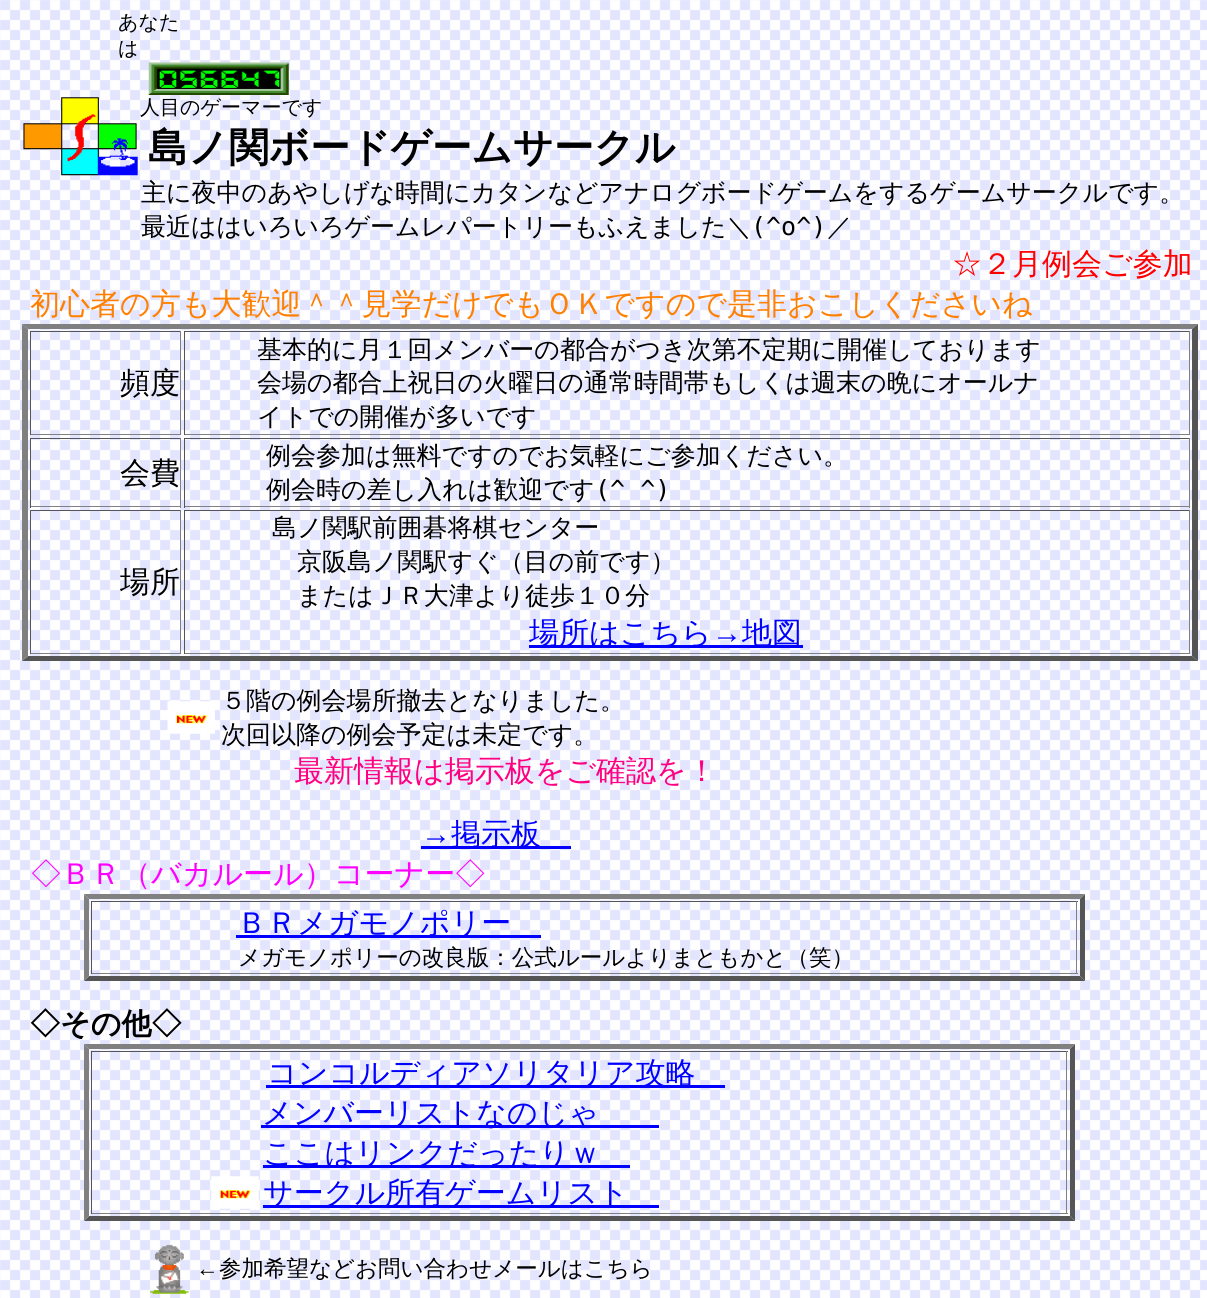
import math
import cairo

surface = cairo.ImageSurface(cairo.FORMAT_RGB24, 1207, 1298)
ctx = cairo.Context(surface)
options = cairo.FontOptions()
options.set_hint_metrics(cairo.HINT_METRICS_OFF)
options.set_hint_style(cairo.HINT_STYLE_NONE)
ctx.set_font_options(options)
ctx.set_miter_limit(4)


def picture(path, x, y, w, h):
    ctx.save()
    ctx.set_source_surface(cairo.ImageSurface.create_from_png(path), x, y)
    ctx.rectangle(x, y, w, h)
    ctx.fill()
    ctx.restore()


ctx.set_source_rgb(1, 1, 1)
ctx.paint()
picture("img1.png", 0, 0, 1207, 1298)
ctx.select_font_face("WenQuanYi Zen Hei Medium")
ctx.set_font_size(20)
ctx.set_source_rgb(0, 0, 0)
ctx.move_to(118, 29)
ctx.show_text("あなた")
ctx.move_to(118, 55)
ctx.show_text("は")
picture("img2.png", 148, 62, 141, 33)
picture("img3.png", 23, 97, 115, 79)
ctx.move_to(140, 114)
ctx.show_text("人目のゲーマーです")
ctx.select_font_face("WenQuanYi Zen Hei", cairo.FONT_SLANT_NORMAL, cairo.FONT_WEIGHT_BOLD)
ctx.set_font_size(40)
ctx.move_to(148, 161)
ctx.show_text("島ノ関ボードゲームサークル")
ctx.select_font_face("WenQuanYi Zen Hei Medium")
ctx.set_font_size(25)
ctx.move_to(141, 201)
ctx.show_text("主に夜中のあやしげな時間にカタンなどアナログボードゲームをするゲームサークルです。")
ctx.move_to(141, 235)
ctx.show_text("最近ははいろいろゲームレパートリーもふえました＼")
ctx.select_font_face("DejaVu Sans Mono")
ctx.move_to(751, 235)
ctx.show_text("(^o^)")
ctx.select_font_face("WenQuanYi Zen Hei Medium")
ctx.move_to(827, 235)
ctx.show_text("／")
ctx.set_font_size(30)
ctx.set_source_rgb(1, 0, 0)
ctx.move_to(952, 274)
ctx.show_text("☆２月例会ご参加")
ctx.set_source_rgb(1, 0.502, 0)
ctx.move_to(30, 314)
ctx.show_text("初心者の方も大歓迎＾＾見学だけでもＯＫですので是非おこしくださいね")
ctx.set_source_rgb(0.502, 0.502, 0.502)
ctx.new_path()
ctx.move_to(22, 324)
ctx.line_to(1198, 324)
ctx.line_to(1192, 329)
ctx.line_to(28, 329)
ctx.close_path()
ctx.fill()
ctx.set_source_rgb(0.333, 0.333, 0.333)
ctx.new_path()
ctx.move_to(1198, 324)
ctx.line_to(1198, 661)
ctx.line_to(1192, 656)
ctx.line_to(1192, 329)
ctx.close_path()
ctx.fill()
ctx.new_path()
ctx.move_to(1198, 661)
ctx.line_to(22, 661)
ctx.line_to(28, 656)
ctx.line_to(1192, 656)
ctx.close_path()
ctx.fill()
ctx.set_source_rgb(0.502, 0.502, 0.502)
ctx.new_path()
ctx.move_to(22, 661)
ctx.line_to(22, 324)
ctx.line_to(28, 329)
ctx.line_to(28, 656)
ctx.close_path()
ctx.fill()
ctx.set_source_rgb(0.333, 0.333, 0.333)
ctx.rectangle(30, 331, 151, 1)
ctx.fill()
ctx.set_source_rgb(0.502, 0.502, 0.502)
ctx.rectangle(180, 331, 1, 104)
ctx.fill()
ctx.rectangle(30, 434, 151, 1)
ctx.fill()
ctx.set_source_rgb(0.333, 0.333, 0.333)
ctx.rectangle(30, 331, 1, 104)
ctx.fill()
ctx.set_source_rgb(0, 0, 0)
ctx.move_to(120, 393)
ctx.show_text("頻度")
ctx.set_source_rgb(0.333, 0.333, 0.333)
ctx.rectangle(184, 331, 1006, 1)
ctx.fill()
ctx.set_source_rgb(0.502, 0.502, 0.502)
ctx.rectangle(1189, 331, 1, 104)
ctx.fill()
ctx.rectangle(184, 434, 1006, 1)
ctx.fill()
ctx.set_source_rgb(0.333, 0.333, 0.333)
ctx.rectangle(184, 331, 1, 104)
ctx.fill()
ctx.set_font_size(25)
ctx.set_source_rgb(0, 0, 0)
ctx.move_to(257, 358)
ctx.show_text("基本的に月１回メンバーの都合がつき次第不定期に開催しております")
ctx.move_to(257, 391)
ctx.show_text("会場の都合上祝日の火曜日の通常時間帯もしくは週末の晩にオールナ")
ctx.move_to(257, 425)
ctx.show_text("イトでの開催が多いです")
ctx.set_source_rgb(0.333, 0.333, 0.333)
ctx.rectangle(30, 438, 151, 1)
ctx.fill()
ctx.set_source_rgb(0.502, 0.502, 0.502)
ctx.rectangle(180, 438, 1, 70)
ctx.fill()
ctx.rectangle(30, 506, 151, 1)
ctx.fill()
ctx.set_source_rgb(0.333, 0.333, 0.333)
ctx.rectangle(30, 438, 1, 70)
ctx.fill()
ctx.set_font_size(30)
ctx.set_source_rgb(0, 0, 0)
ctx.move_to(120, 483)
ctx.show_text("会費")
ctx.set_source_rgb(0.333, 0.333, 0.333)
ctx.rectangle(184, 438, 1006, 1)
ctx.fill()
ctx.set_source_rgb(0.502, 0.502, 0.502)
ctx.rectangle(1189, 438, 1, 70)
ctx.fill()
ctx.rectangle(184, 506, 1006, 1)
ctx.fill()
ctx.set_source_rgb(0.333, 0.333, 0.333)
ctx.rectangle(184, 438, 1, 70)
ctx.fill()
ctx.set_font_size(25)
ctx.set_source_rgb(0, 0, 0)
ctx.move_to(266, 464)
ctx.show_text("例会参加は無料ですのでお気軽にご参加ください。")
ctx.move_to(266, 498)
ctx.show_text("例会時の差し入れは歓迎です")
ctx.select_font_face("DejaVu Sans Mono")
ctx.move_to(595, 498)
ctx.show_text("(^ ^)")
ctx.set_source_rgb(0.333, 0.333, 0.333)
ctx.rectangle(30, 510, 151, 1)
ctx.fill()
ctx.set_source_rgb(0.502, 0.502, 0.502)
ctx.rectangle(180, 510, 1, 144)
ctx.fill()
ctx.rectangle(30, 653, 151, 1)
ctx.fill()
ctx.set_source_rgb(0.333, 0.333, 0.333)
ctx.rectangle(30, 510, 1, 144)
ctx.fill()
ctx.select_font_face("WenQuanYi Zen Hei Medium")
ctx.set_font_size(30)
ctx.set_source_rgb(0, 0, 0)
ctx.move_to(120, 592)
ctx.show_text("場所")
ctx.set_source_rgb(0.333, 0.333, 0.333)
ctx.rectangle(184, 510, 1006, 1)
ctx.fill()
ctx.set_source_rgb(0.502, 0.502, 0.502)
ctx.rectangle(1189, 510, 1, 144)
ctx.fill()
ctx.rectangle(184, 653, 1006, 1)
ctx.fill()
ctx.set_source_rgb(0.333, 0.333, 0.333)
ctx.rectangle(184, 510, 1, 144)
ctx.fill()
ctx.set_font_size(25)
ctx.set_source_rgb(0, 0, 0)
ctx.move_to(272, 536)
ctx.show_text("島ノ関駅前囲碁将棋センター")
ctx.move_to(297, 570)
ctx.show_text("京阪島ノ関駅すぐ（目の前です）")
ctx.move_to(297, 604)
ctx.show_text("またはＪＲ大津より徒歩１０分")
ctx.set_source_rgb(0, 0, 1)
ctx.rectangle(529, 645, 274, 3)
ctx.fill()
ctx.set_font_size(30)
ctx.move_to(529, 643)
ctx.show_text("場所はこちら")
ctx.select_font_face("Liberation Serif")
ctx.move_to(712, 643)
ctx.show_text("→")
ctx.select_font_face("WenQuanYi Zen Hei Medium")
ctx.move_to(742, 643)
ctx.show_text("地図")
picture("img4.png", 167, 701, 48, 33)
ctx.set_font_size(25)
ctx.set_source_rgb(0, 0, 0)
ctx.move_to(221, 709)
ctx.show_text("５階の例会場所撤去となりました。")
ctx.move_to(221, 743)
ctx.show_text("次回以降の例会予定は未定です。")
ctx.set_font_size(30)
ctx.set_source_rgb(1, 0, 0.502)
ctx.move_to(294, 781)
ctx.show_text("最新情報は掲示板をご確認を！")
ctx.select_font_face("Liberation Serif")
ctx.set_source_rgb(0, 0, 1)
ctx.move_to(421, 844)
ctx.show_text("→")
ctx.rectangle(421, 846, 150, 3)
ctx.fill()
ctx.select_font_face("WenQuanYi Zen Hei Medium")
ctx.move_to(451, 844)
ctx.show_text("掲示板")
ctx.set_source_rgb(1, 0, 1)
ctx.move_to(31, 884)
ctx.show_text("◇ＢＲ（バカルール）コーナー◇")
ctx.set_source_rgb(0.502, 0.502, 0.502)
ctx.new_path()
ctx.move_to(84, 894)
ctx.line_to(1085, 894)
ctx.line_to(1080, 899)
ctx.line_to(89, 899)
ctx.close_path()
ctx.fill()
ctx.set_source_rgb(0.333, 0.333, 0.333)
ctx.new_path()
ctx.move_to(1085, 894)
ctx.line_to(1085, 981)
ctx.line_to(1080, 976)
ctx.line_to(1080, 899)
ctx.close_path()
ctx.fill()
ctx.new_path()
ctx.move_to(1085, 981)
ctx.line_to(84, 981)
ctx.line_to(89, 976)
ctx.line_to(1080, 976)
ctx.close_path()
ctx.fill()
ctx.set_source_rgb(0.502, 0.502, 0.502)
ctx.new_path()
ctx.move_to(84, 981)
ctx.line_to(84, 894)
ctx.line_to(89, 899)
ctx.line_to(89, 976)
ctx.close_path()
ctx.fill()
ctx.set_source_rgb(0.333, 0.333, 0.333)
ctx.rectangle(91, 901, 987, 1)
ctx.fill()
ctx.set_source_rgb(0.502, 0.502, 0.502)
ctx.rectangle(1076, 901, 1, 73)
ctx.fill()
ctx.rectangle(91, 973, 987, 1)
ctx.fill()
ctx.set_source_rgb(0.333, 0.333, 0.333)
ctx.rectangle(91, 901, 1, 73)
ctx.fill()
ctx.set_source_rgb(0, 0, 1)
ctx.rectangle(236, 935, 305, 3)
ctx.fill()
ctx.move_to(237, 933)
ctx.show_text("ＢＲメガモノポリー")
ctx.set_font_size(22.5)
ctx.set_source_rgb(0, 0, 0)
ctx.move_to(238, 965)
ctx.show_text("メガモノポリーの改良版：公式ルールよりまともかと（笑）")
ctx.select_font_face("WenQuanYi Zen Hei", cairo.FONT_SLANT_NORMAL, cairo.FONT_WEIGHT_BOLD)
ctx.set_font_size(30)
ctx.move_to(30, 1034)
ctx.show_text("◇その他◇")
ctx.set_source_rgb(0.502, 0.502, 0.502)
ctx.new_path()
ctx.move_to(84, 1044)
ctx.line_to(1075, 1044)
ctx.line_to(1070, 1049)
ctx.line_to(89, 1049)
ctx.close_path()
ctx.fill()
ctx.set_source_rgb(0.333, 0.333, 0.333)
ctx.new_path()
ctx.move_to(1075, 1044)
ctx.line_to(1075, 1221)
ctx.line_to(1070, 1216)
ctx.line_to(1070, 1049)
ctx.close_path()
ctx.fill()
ctx.new_path()
ctx.move_to(1075, 1221)
ctx.line_to(84, 1221)
ctx.line_to(89, 1216)
ctx.line_to(1070, 1216)
ctx.close_path()
ctx.fill()
ctx.set_source_rgb(0.502, 0.502, 0.502)
ctx.new_path()
ctx.move_to(84, 1221)
ctx.line_to(84, 1044)
ctx.line_to(89, 1049)
ctx.line_to(89, 1216)
ctx.close_path()
ctx.fill()
ctx.set_source_rgb(0.333, 0.333, 0.333)
ctx.rectangle(91, 1051, 977, 1)
ctx.fill()
ctx.set_source_rgb(0.502, 0.502, 0.502)
ctx.rectangle(1066, 1051, 1, 163)
ctx.fill()
ctx.rectangle(91, 1213, 977, 1)
ctx.fill()
ctx.set_source_rgb(0.333, 0.333, 0.333)
ctx.rectangle(91, 1051, 1, 163)
ctx.fill()
ctx.set_source_rgb(0, 0, 1)
ctx.rectangle(266, 1085, 459, 3)
ctx.fill()
ctx.select_font_face("WenQuanYi Zen Hei Medium")
ctx.move_to(267, 1083)
ctx.show_text("コンコルディアソリタリア攻略")
ctx.rectangle(261, 1125, 398, 3)
ctx.fill()
ctx.move_to(262, 1123)
ctx.show_text("メンバーリストなのじゃ")
ctx.rectangle(263, 1165, 367, 3)
ctx.fill()
ctx.move_to(263, 1163)
ctx.show_text("ここはリンクだったりｗ")
picture("img5.png", 211, 1176, 48, 33)
ctx.rectangle(263, 1205, 396, 3)
ctx.fill()
ctx.move_to(263, 1203)
ctx.show_text("サークル所有ゲームリスト")
picture("img6.png", 149, 1244, 40, 50)
ctx.select_font_face("Liberation Serif")
ctx.set_font_size(22.5)
ctx.set_source_rgb(0, 0, 0)
ctx.move_to(196, 1276)
ctx.show_text("←")
ctx.select_font_face("WenQuanYi Zen Hei Medium")
ctx.move_to(219, 1276)
ctx.show_text("参加希望などお問い合わせメールはこちら")
surface.write_to_png("page.png")
